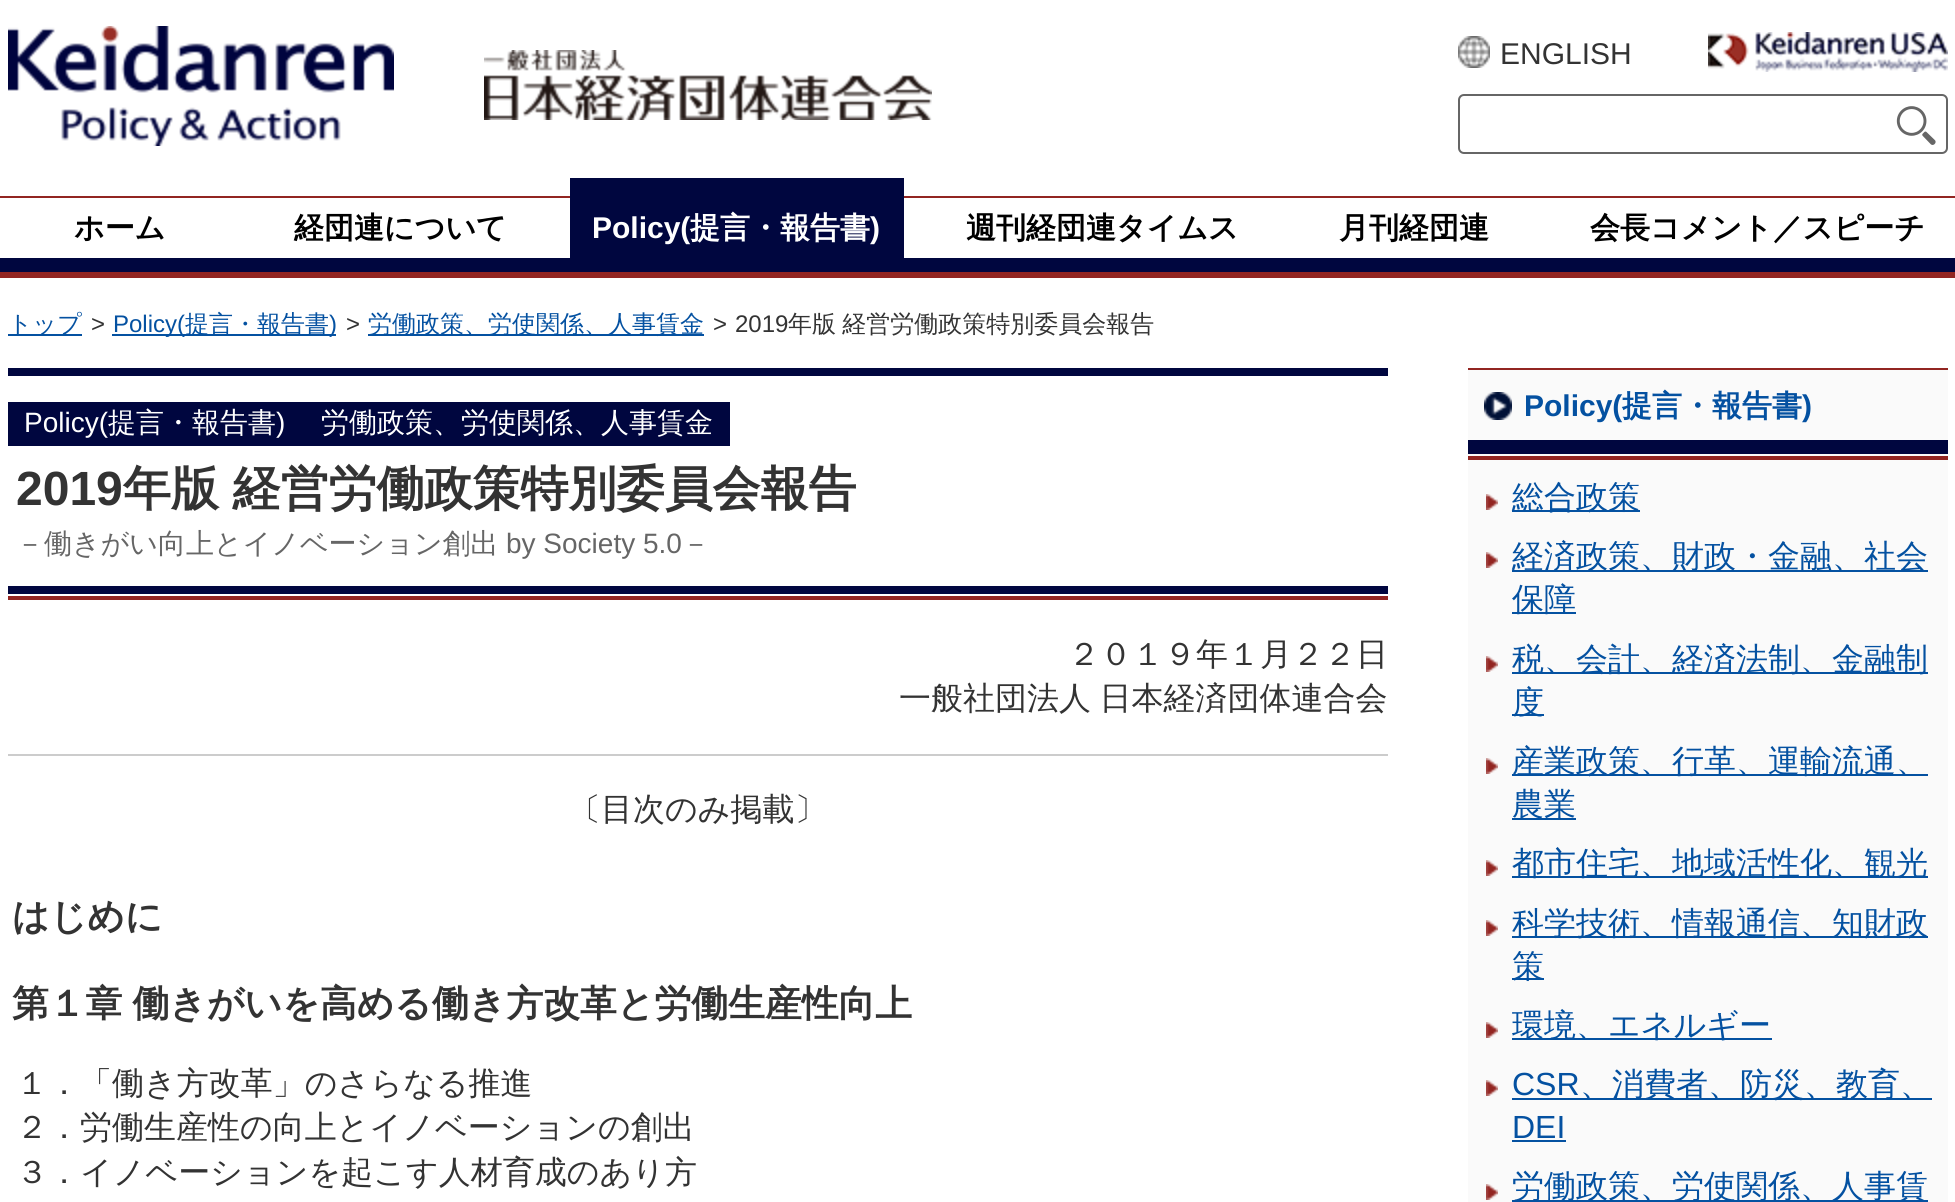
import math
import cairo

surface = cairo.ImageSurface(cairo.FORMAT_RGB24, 1955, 1202)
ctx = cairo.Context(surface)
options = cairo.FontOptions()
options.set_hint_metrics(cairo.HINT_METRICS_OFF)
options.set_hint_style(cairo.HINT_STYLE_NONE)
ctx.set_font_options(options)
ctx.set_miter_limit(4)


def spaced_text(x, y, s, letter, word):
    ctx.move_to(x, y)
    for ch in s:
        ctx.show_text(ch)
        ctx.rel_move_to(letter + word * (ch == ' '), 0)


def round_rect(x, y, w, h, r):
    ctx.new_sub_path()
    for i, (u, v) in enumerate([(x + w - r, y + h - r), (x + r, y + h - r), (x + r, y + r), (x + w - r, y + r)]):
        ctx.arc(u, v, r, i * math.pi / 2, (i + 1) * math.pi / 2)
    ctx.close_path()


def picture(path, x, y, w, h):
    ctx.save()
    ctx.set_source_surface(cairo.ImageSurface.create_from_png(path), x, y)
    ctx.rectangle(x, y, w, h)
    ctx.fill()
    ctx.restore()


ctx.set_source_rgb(1, 1, 1)
ctx.paint()
ctx.set_source_rgb(0.573, 0.145, 0.129)
ctx.rectangle(0, 272, 1955, 6)
ctx.fill()
picture("img1.png", 8, 26, 386, 120)
picture("img2.png", 484, 50, 448, 70)
picture("img3.png", 1458, 36, 32, 32)
ctx.select_font_face("Liberation Sans")
ctx.set_font_size(30)
ctx.set_source_rgb(0.2, 0.2, 0.2)
ctx.move_to(1500, 64)
ctx.show_text("ENGLISH")
picture("img4.png", 1708, 32, 240, 40)
round_rect(1459, 95, 488, 58, 5)
ctx.set_source_rgb(0.4, 0.4, 0.4)
ctx.stroke()
picture("img5.png", 1896, 106, 40, 39)
ctx.set_source_rgb(0.573, 0.145, 0.129)
ctx.rectangle(0, 196, 1955, 2)
ctx.fill()
ctx.set_source_rgb(0, 0.027, 0.247)
ctx.rectangle(0, 258, 1955, 14)
ctx.fill()
ctx.select_font_face("WenQuanYi Zen Hei", cairo.FONT_SLANT_NORMAL, cairo.FONT_WEIGHT_BOLD)
ctx.set_source_rgb(0, 0, 0)
ctx.move_to(74, 238)
ctx.show_text("ホーム")
ctx.move_to(294, 238)
ctx.show_text("経団連について")
ctx.set_source_rgb(0, 0.027, 0.247)
ctx.rectangle(570, 178, 334, 80)
ctx.fill()
ctx.select_font_face("Liberation Sans", cairo.FONT_SLANT_NORMAL, cairo.FONT_WEIGHT_BOLD)
ctx.set_source_rgb(1, 1, 1)
ctx.move_to(592, 238)
ctx.show_text("Policy(")
ctx.select_font_face("WenQuanYi Zen Hei", cairo.FONT_SLANT_NORMAL, cairo.FONT_WEIGHT_BOLD)
ctx.move_to(690, 238)
ctx.show_text("提言・報告書")
ctx.select_font_face("Liberation Sans", cairo.FONT_SLANT_NORMAL, cairo.FONT_WEIGHT_BOLD)
ctx.move_to(870, 238)
ctx.show_text(")")
ctx.select_font_face("WenQuanYi Zen Hei", cairo.FONT_SLANT_NORMAL, cairo.FONT_WEIGHT_BOLD)
ctx.set_source_rgb(0, 0, 0)
ctx.move_to(966, 238)
ctx.show_text("週刊経団連タイムス")
ctx.move_to(1339, 238)
ctx.show_text("月刊経団連")
ctx.move_to(1590, 238)
ctx.show_text("会長コメント／スピーチ")
ctx.set_source_rgb(0.016, 0.318, 0.631)
ctx.rectangle(8, 334, 74, 2)
ctx.fill()
ctx.select_font_face("WenQuanYi Zen Hei Medium")
ctx.set_font_size(24)
ctx.move_to(8, 332)
ctx.show_text("トップ")
ctx.select_font_face("Liberation Sans")
ctx.set_source_rgb(0.2, 0.2, 0.2)
ctx.move_to(91, 332)
ctx.show_text(">")
ctx.set_source_rgb(0.016, 0.318, 0.631)
ctx.rectangle(112, 334, 224, 2)
ctx.fill()
ctx.move_to(113, 332)
ctx.show_text("Policy(")
ctx.select_font_face("WenQuanYi Zen Hei Medium")
ctx.move_to(185, 332)
ctx.show_text("提言・報告書")
ctx.select_font_face("Liberation Sans")
ctx.move_to(329, 332)
ctx.show_text(")")
ctx.set_source_rgb(0.2, 0.2, 0.2)
ctx.move_to(346, 332)
ctx.show_text(">")
ctx.set_source_rgb(0.016, 0.318, 0.631)
ctx.rectangle(368, 334, 336, 2)
ctx.fill()
ctx.select_font_face("WenQuanYi Zen Hei Medium")
ctx.move_to(368, 332)
ctx.show_text("労働政策、労使関係、人事賃金")
ctx.select_font_face("Liberation Sans")
ctx.set_source_rgb(0.2, 0.2, 0.2)
ctx.move_to(713, 332)
ctx.show_text(">")
ctx.move_to(735, 332)
ctx.show_text("2019")
ctx.select_font_face("WenQuanYi Zen Hei Medium")
spaced_text(788, 332, "年版 経営労働政策特別委員会報告", 0, -1)
ctx.set_source_rgb(0, 0.027, 0.247)
ctx.rectangle(8, 368, 1380, 8)
ctx.fill()
ctx.rectangle(8, 586, 1380, 8)
ctx.fill()
ctx.rectangle(8, 402, 722, 44)
ctx.fill()
ctx.select_font_face("Liberation Sans")
ctx.set_font_size(28)
ctx.set_source_rgb(1, 1, 1)
ctx.move_to(24, 432)
ctx.show_text("Policy(")
ctx.select_font_face("WenQuanYi Zen Hei Medium")
ctx.move_to(108, 432)
ctx.show_text("提言・報告書")
ctx.select_font_face("Liberation Sans")
ctx.move_to(276, 432)
ctx.show_text(")")
ctx.select_font_face("WenQuanYi Zen Hei Medium")
ctx.move_to(321, 432)
ctx.show_text("労働政策、労使関係、人事賃金")
ctx.select_font_face("Liberation Sans", cairo.FONT_SLANT_NORMAL, cairo.FONT_WEIGHT_BOLD)
ctx.set_font_size(48)
ctx.set_source_rgb(0.2, 0.2, 0.2)
ctx.move_to(16, 505)
ctx.show_text("2019")
ctx.select_font_face("WenQuanYi Zen Hei", cairo.FONT_SLANT_NORMAL, cairo.FONT_WEIGHT_BOLD)
spaced_text(123, 505, "年版 経営労働政策特別委員会報告", 0, -1)
ctx.select_font_face("WenQuanYi Zen Hei Medium")
ctx.set_font_size(28)
ctx.set_source_rgb(0.4, 0.4, 0.4)
ctx.move_to(16, 553)
ctx.show_text("－働きがい向上とイノベーション創出")
ctx.select_font_face("Liberation Sans")
ctx.move_to(506, 553)
ctx.show_text("by Society 5.0")
ctx.select_font_face("WenQuanYi Zen Hei Medium")
ctx.move_to(682, 553)
ctx.show_text("－")
ctx.set_source_rgb(0.573, 0.145, 0.129)
ctx.rectangle(8, 596, 1380, 4)
ctx.fill()
ctx.set_font_size(32)
ctx.set_source_rgb(0.2, 0.2, 0.2)
ctx.move_to(1068, 665)
ctx.show_text("２０１９年１月２２日")
spaced_text(899, 709, "一般社団法人 日本経済団体連合会", 0, -1)
ctx.set_source_rgb(0.8, 0.8, 0.8)
ctx.rectangle(8, 754, 1380, 2)
ctx.fill()
ctx.set_source_rgb(0.2, 0.2, 0.2)
ctx.move_to(569, 820)
ctx.show_text("〔目次のみ掲載〕")
ctx.select_font_face("WenQuanYi Zen Hei", cairo.FONT_SLANT_NORMAL, cairo.FONT_WEIGHT_BOLD)
ctx.set_font_size(36.8)
ctx.move_to(12, 929)
ctx.show_text("はじめに")
spaced_text(12, 1016, "第１章 働きがいを高める働き方改革と労働生産性向上", 0, -1)
ctx.select_font_face("WenQuanYi Zen Hei Medium")
ctx.set_font_size(32)
ctx.move_to(16, 1094)
ctx.show_text("１．「働き方改革」のさらなる推進")
ctx.move_to(16, 1138)
ctx.show_text("２．労働生産性の向上とイノベーションの創出")
ctx.move_to(16, 1183)
ctx.show_text("３．イノベーションを起こす人材育成のあり方")
ctx.set_source_rgb(0.98, 0.98, 0.98)
ctx.rectangle(1468, 370, 480, 832)
ctx.fill()
picture("img6.png", 1484, 392, 28, 28)
ctx.set_source_rgb(0.573, 0.145, 0.129)
ctx.rectangle(1468, 368, 480, 2)
ctx.fill()
ctx.set_source_rgb(0, 0.027, 0.247)
ctx.rectangle(1468, 440, 480, 14)
ctx.fill()
ctx.select_font_face("Liberation Sans", cairo.FONT_SLANT_NORMAL, cairo.FONT_WEIGHT_BOLD)
ctx.set_font_size(30)
ctx.set_source_rgb(0.016, 0.318, 0.631)
ctx.move_to(1524, 416)
ctx.show_text("Policy(")
ctx.select_font_face("WenQuanYi Zen Hei", cairo.FONT_SLANT_NORMAL, cairo.FONT_WEIGHT_BOLD)
ctx.move_to(1622, 416)
ctx.show_text("提言・報告書")
ctx.select_font_face("Liberation Sans", cairo.FONT_SLANT_NORMAL, cairo.FONT_WEIGHT_BOLD)
ctx.move_to(1802, 416)
ctx.show_text(")")
ctx.set_source_rgb(0.573, 0.145, 0.129)
ctx.rectangle(1468, 456, 480, 4)
ctx.fill()
picture("img7.png", 1486, 494, 12, 16)
ctx.set_source_rgb(0.016, 0.318, 0.631)
ctx.rectangle(1512, 510, 128, 2)
ctx.fill()
ctx.select_font_face("WenQuanYi Zen Hei Medium")
ctx.set_font_size(32)
ctx.move_to(1512, 508)
ctx.show_text("総合政策")
picture("img7.png", 1486, 552, 12, 16)
ctx.rectangle(1512, 570, 416, 2)
ctx.fill()
ctx.move_to(1512, 567)
ctx.show_text("経済政策、財政・金融、社会")
ctx.rectangle(1512, 612, 64, 2)
ctx.fill()
ctx.move_to(1512, 610)
ctx.show_text("保障")
picture("img7.png", 1486, 656, 12, 16)
ctx.rectangle(1512, 672, 416, 2)
ctx.fill()
ctx.move_to(1512, 670)
ctx.show_text("税、会計、経済法制、金融制")
ctx.rectangle(1512, 714, 32, 2)
ctx.fill()
ctx.move_to(1512, 713)
ctx.show_text("度")
picture("img7.png", 1486, 758, 12, 16)
ctx.rectangle(1512, 774, 416, 2)
ctx.fill()
ctx.move_to(1512, 772)
ctx.show_text("産業政策、行革、運輸流通、")
ctx.rectangle(1512, 818, 64, 2)
ctx.fill()
ctx.move_to(1512, 815)
ctx.show_text("農業")
picture("img7.png", 1486, 860, 12, 16)
ctx.rectangle(1512, 876, 416, 2)
ctx.fill()
ctx.move_to(1512, 874)
ctx.show_text("都市住宅、地域活性化、観光")
picture("img7.png", 1486, 920, 12, 16)
ctx.rectangle(1512, 936, 416, 2)
ctx.fill()
ctx.move_to(1512, 934)
ctx.show_text("科学技術、情報通信、知財政")
ctx.rectangle(1512, 978, 32, 2)
ctx.fill()
ctx.move_to(1512, 977)
ctx.show_text("策")
picture("img7.png", 1486, 1022, 12, 16)
ctx.rectangle(1512, 1038, 260, 2)
ctx.fill()
ctx.move_to(1512, 1036)
ctx.show_text("環境、エネルギー")
picture("img7.png", 1486, 1080, 12, 16)
ctx.select_font_face("Liberation Sans")
ctx.move_to(1512, 1095)
ctx.show_text("CSR")
ctx.rectangle(1512, 1098, 420, 2)
ctx.fill()
ctx.select_font_face("WenQuanYi Zen Hei Medium")
ctx.move_to(1580, 1095)
ctx.show_text("、消費者、防災、教育、")
ctx.select_font_face("Liberation Sans")
ctx.move_to(1512, 1138)
ctx.show_text("DEI")
ctx.rectangle(1512, 1140, 54, 2)
ctx.fill()
picture("img7.png", 1486, 1184, 12, 16)
ctx.rectangle(1512, 1200, 416, 2)
ctx.fill()
ctx.select_font_face("WenQuanYi Zen Hei Medium")
ctx.move_to(1512, 1197)
ctx.show_text("労働政策、労使関係、人事賃")
surface.write_to_png("page.png")
